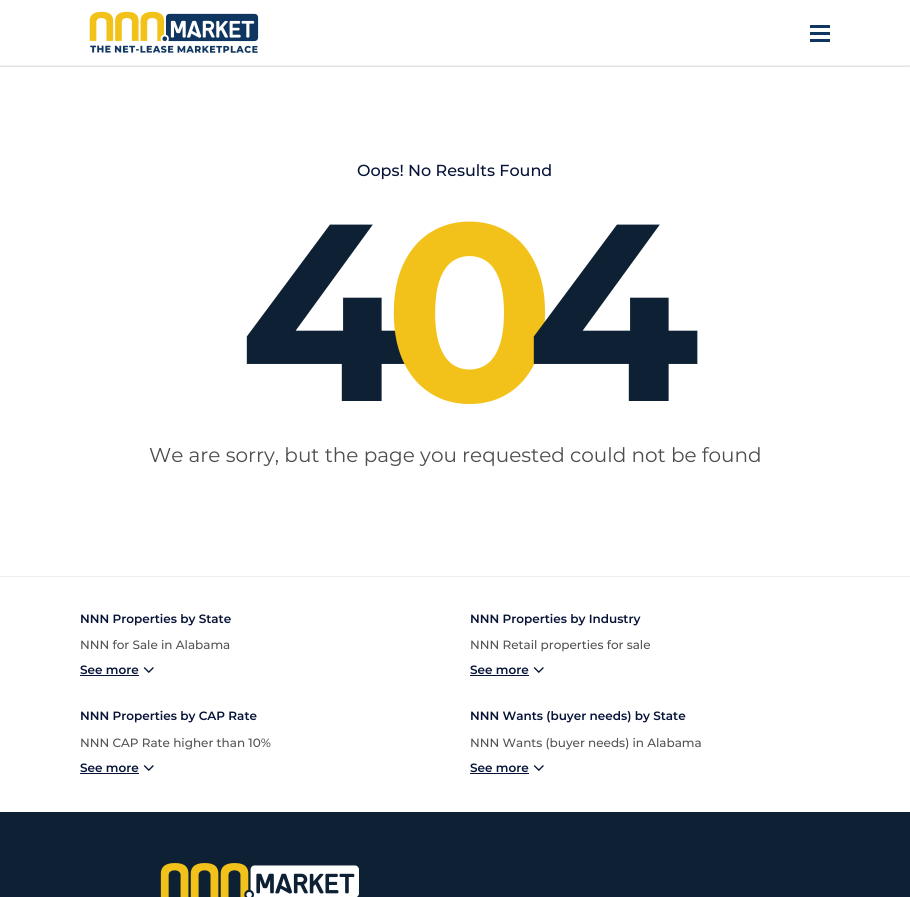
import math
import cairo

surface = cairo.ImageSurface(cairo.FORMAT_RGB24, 910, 897)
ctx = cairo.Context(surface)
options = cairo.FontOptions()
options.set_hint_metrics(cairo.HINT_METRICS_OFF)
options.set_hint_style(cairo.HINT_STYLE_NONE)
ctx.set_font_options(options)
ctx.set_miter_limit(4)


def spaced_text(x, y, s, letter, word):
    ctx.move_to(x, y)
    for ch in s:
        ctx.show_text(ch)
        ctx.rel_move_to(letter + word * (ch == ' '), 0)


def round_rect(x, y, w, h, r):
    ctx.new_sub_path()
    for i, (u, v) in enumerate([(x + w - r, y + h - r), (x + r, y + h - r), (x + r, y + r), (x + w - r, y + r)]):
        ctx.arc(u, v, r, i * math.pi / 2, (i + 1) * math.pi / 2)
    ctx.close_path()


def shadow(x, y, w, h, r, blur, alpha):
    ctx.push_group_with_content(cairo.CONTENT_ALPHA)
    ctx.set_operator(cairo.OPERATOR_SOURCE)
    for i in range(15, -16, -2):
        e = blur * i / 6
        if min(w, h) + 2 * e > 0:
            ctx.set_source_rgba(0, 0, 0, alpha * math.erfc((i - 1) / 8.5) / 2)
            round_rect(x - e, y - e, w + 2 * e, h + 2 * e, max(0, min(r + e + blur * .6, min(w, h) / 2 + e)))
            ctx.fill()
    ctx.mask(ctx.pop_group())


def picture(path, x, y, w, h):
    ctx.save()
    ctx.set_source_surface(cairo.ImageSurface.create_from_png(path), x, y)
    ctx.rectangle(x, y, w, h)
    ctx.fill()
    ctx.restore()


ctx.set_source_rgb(1, 1, 1)
ctx.paint()
ctx.save()
ctx.rectangle(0, 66, 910, 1)
ctx.clip()
ctx.set_source_rgb(0, 0, 0)
shadow(0, 0, 910, 67, 0, 1, 0.15)
ctx.restore()
ctx.set_source_rgb(0.933, 0.937, 0.953)
ctx.rectangle(0, 65, 910, 1)
ctx.fill()
picture("img1.png", 89, 11, 170, 42)
ctx.set_source_rgb(0.059, 0.212, 0.38)
ctx.rectangle(810, 39, 20, 3)
ctx.fill()
ctx.rectangle(810, 32, 20, 3)
ctx.fill()
ctx.rectangle(810, 25, 20, 3)
ctx.fill()
ctx.set_source_rgb(1, 1, 1)
ctx.rectangle(0, 67, 910, 1)
ctx.fill()
ctx.select_font_face("Montserrat Medium")
ctx.set_font_size(16)
ctx.set_source_rgb(0.027, 0.078, 0.216)
ctx.move_to(357, 176)
ctx.show_text("Oops! No Results Found")
ctx.select_font_face("Montserrat", cairo.FONT_SLANT_NORMAL, cairo.FONT_WEIGHT_BOLD)
ctx.set_font_size(252)
ctx.set_source_rgb(0.055, 0.125, 0.204)
spaced_text(239, 401, "4", -29, 0)
ctx.set_source_rgb(0.949, 0.761, 0.102)
spaced_text(384, 401, "0", -29, 0)
ctx.set_source_rgb(0.055, 0.125, 0.204)
spaced_text(526, 401, "4", -29, 0)
ctx.select_font_face("Montserrat")
ctx.set_font_size(20)
ctx.set_source_rgb(0.302, 0.302, 0.302)
ctx.move_to(149, 462)
ctx.show_text("We are sorry, but the page you requested could not be found")
ctx.set_source_rgb(0.933, 0.937, 0.953)
ctx.rectangle(0, 576, 910, 1)
ctx.fill()
ctx.select_font_face("Montserrat SemiBold")
ctx.set_font_size(12)
ctx.set_source_rgb(0.027, 0.078, 0.216)
ctx.move_to(80, 623)
ctx.show_text("NNN Properties by State")
ctx.select_font_face("Montserrat Medium")
ctx.set_source_rgb(0.325, 0.325, 0.325)
ctx.move_to(80, 649)
ctx.show_text("NNN for Sale in Alabama")
ctx.select_font_face("Montserrat SemiBold")
ctx.set_source_rgb(0.027, 0.078, 0.216)
ctx.move_to(80, 674)
ctx.show_text("See more")
ctx.rectangle(80, 675, 59, 1)
ctx.fill()
picture("img2.png", 143, 667, 11, 6)
ctx.move_to(470, 623)
ctx.show_text("NNN Properties by Industry")
ctx.select_font_face("Montserrat Medium")
ctx.set_source_rgb(0.325, 0.325, 0.325)
ctx.move_to(470, 649)
ctx.show_text("NNN Retail properties for sale")
ctx.select_font_face("Montserrat SemiBold")
ctx.set_source_rgb(0.027, 0.078, 0.216)
ctx.move_to(470, 674)
ctx.show_text("See more")
ctx.rectangle(470, 675, 59, 1)
ctx.fill()
picture("img2.png", 533, 667, 11, 6)
ctx.move_to(80, 720)
ctx.show_text("NNN Properties by CAP Rate")
ctx.select_font_face("Montserrat Medium")
ctx.set_source_rgb(0.325, 0.325, 0.325)
ctx.move_to(80, 747)
ctx.show_text("NNN CAP Rate higher than 10%")
ctx.select_font_face("Montserrat SemiBold")
ctx.set_source_rgb(0.027, 0.078, 0.216)
ctx.move_to(80, 772)
ctx.show_text("See more")
ctx.rectangle(80, 773, 59, 1)
ctx.fill()
picture("img2.png", 143, 765, 11, 6)
ctx.move_to(470, 720)
ctx.show_text("NNN Wants (buyer needs) by State")
ctx.select_font_face("Montserrat Medium")
ctx.set_source_rgb(0.325, 0.325, 0.325)
ctx.move_to(470, 747)
ctx.show_text("NNN Wants (buyer needs) in Alabama")
ctx.select_font_face("Montserrat SemiBold")
ctx.set_source_rgb(0.027, 0.078, 0.216)
ctx.move_to(470, 772)
ctx.show_text("See more")
ctx.rectangle(470, 773, 59, 1)
ctx.fill()
picture("img2.png", 533, 765, 11, 6)
ctx.set_source_rgb(0.055, 0.125, 0.204)
ctx.rectangle(0, 812, 910, 85)
ctx.fill()
picture("img3.png", 160, 863, 199, 34)
surface.write_to_png("page.png")
